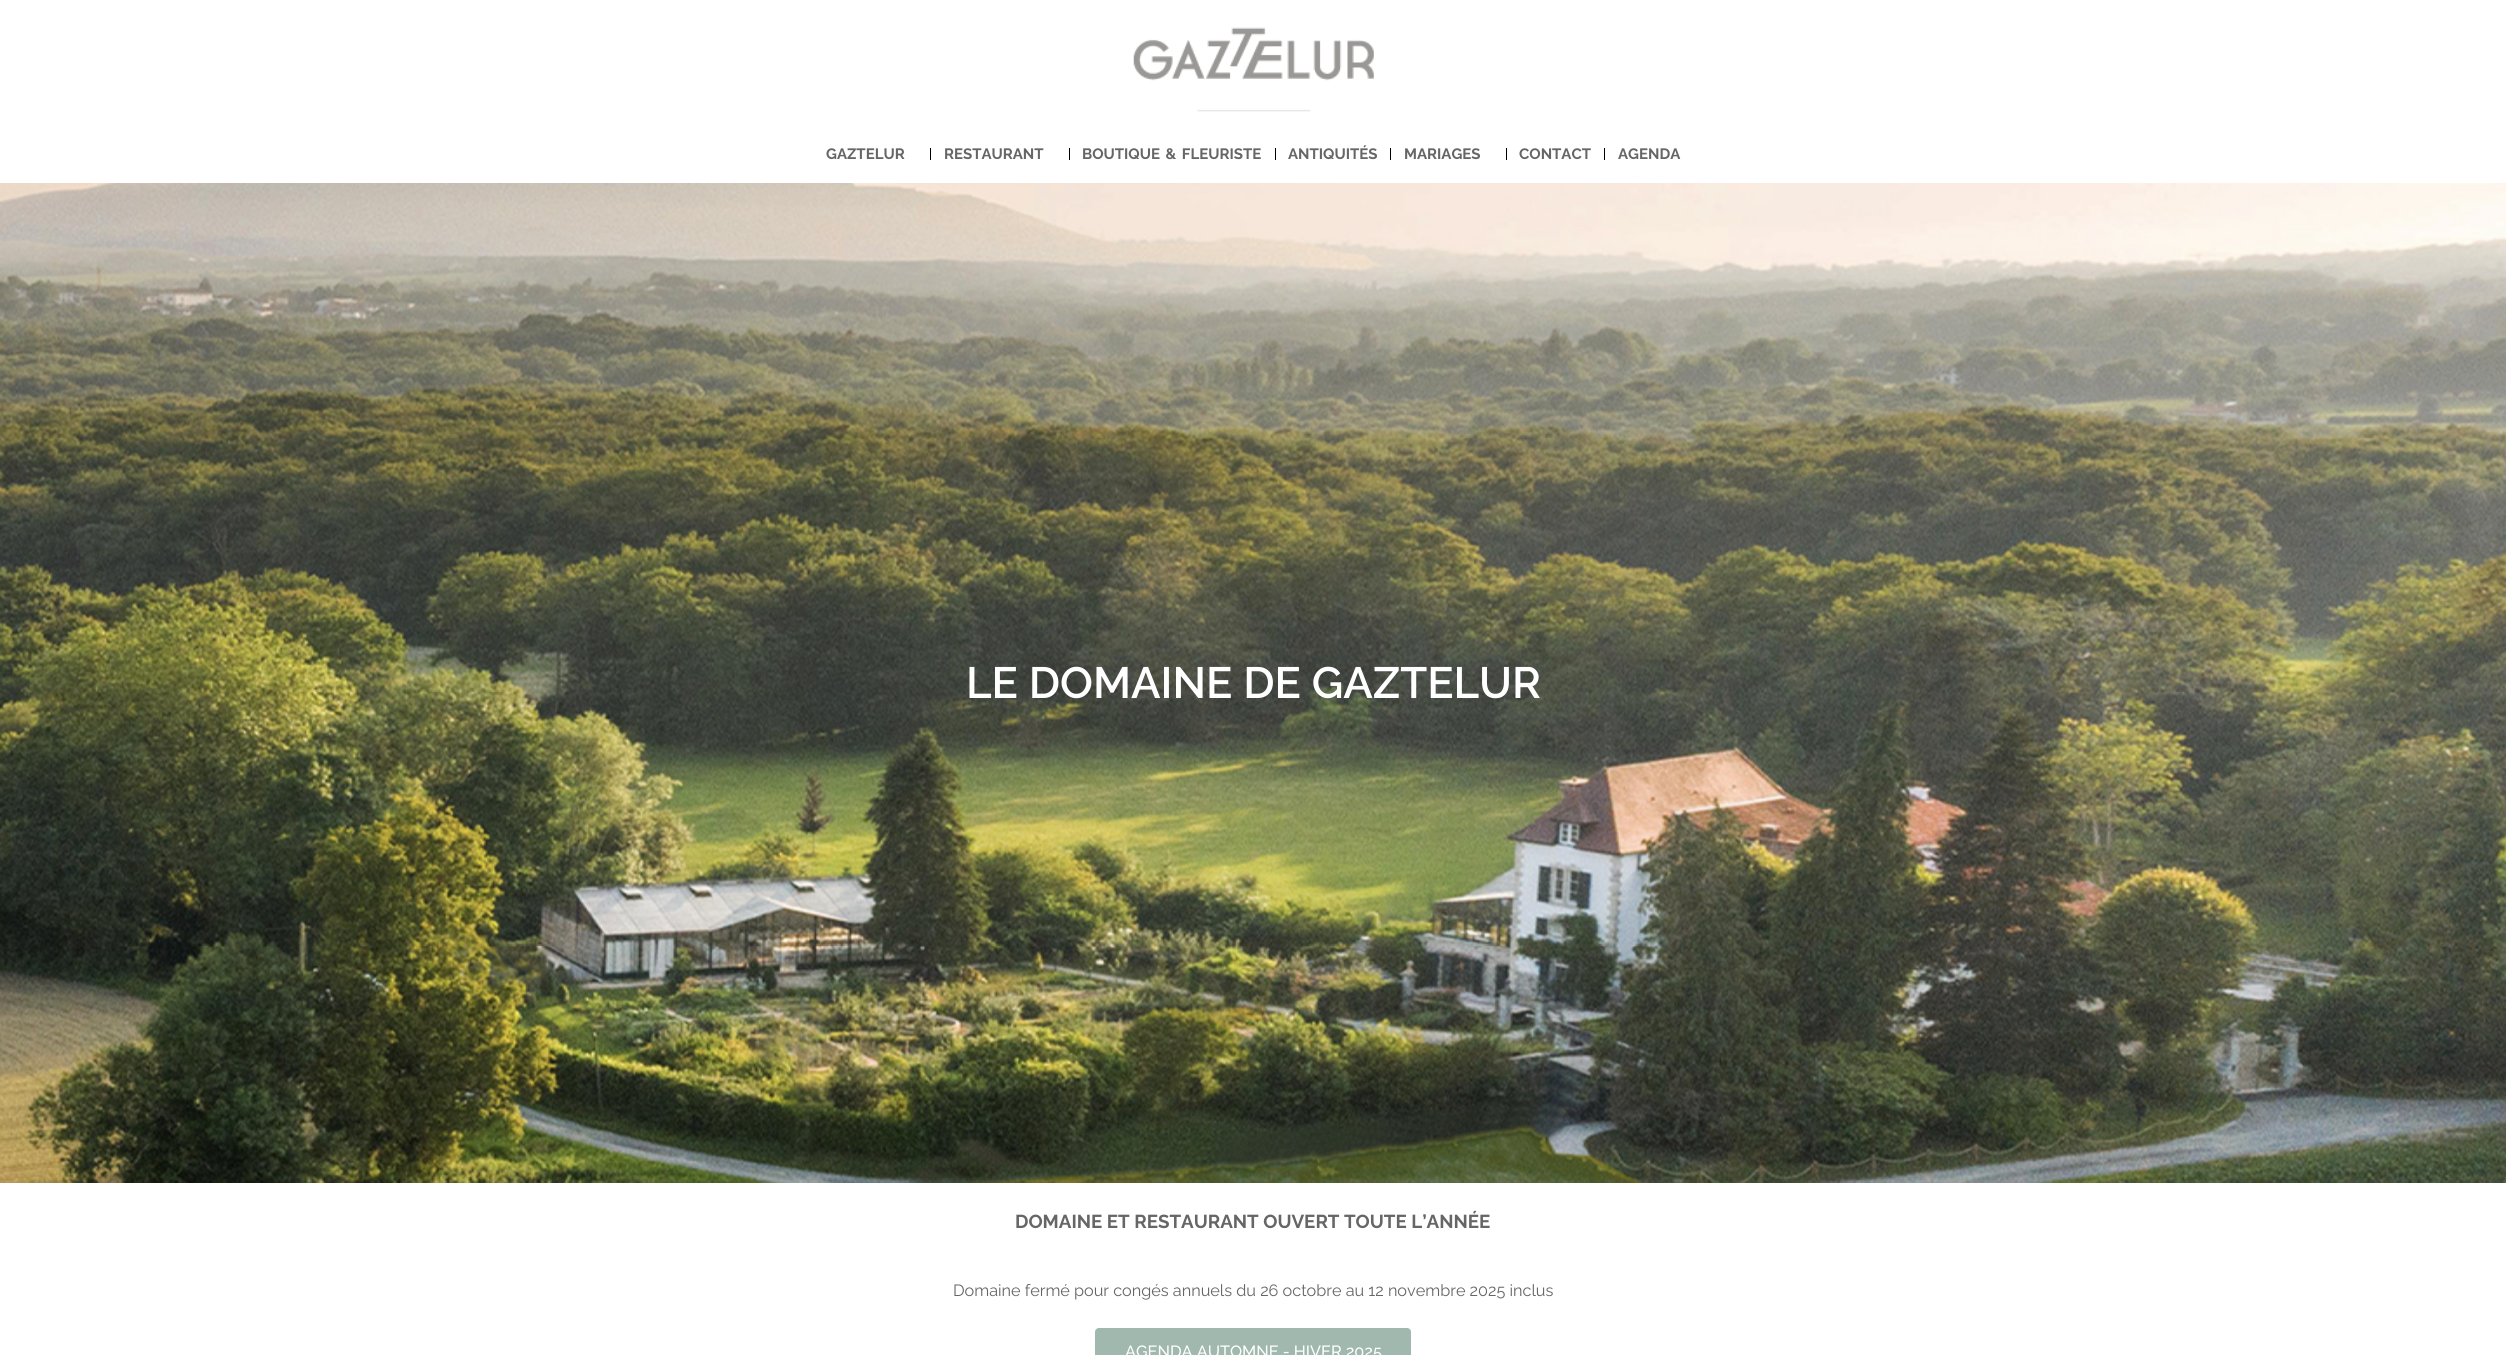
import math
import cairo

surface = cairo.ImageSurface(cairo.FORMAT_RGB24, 2506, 1355)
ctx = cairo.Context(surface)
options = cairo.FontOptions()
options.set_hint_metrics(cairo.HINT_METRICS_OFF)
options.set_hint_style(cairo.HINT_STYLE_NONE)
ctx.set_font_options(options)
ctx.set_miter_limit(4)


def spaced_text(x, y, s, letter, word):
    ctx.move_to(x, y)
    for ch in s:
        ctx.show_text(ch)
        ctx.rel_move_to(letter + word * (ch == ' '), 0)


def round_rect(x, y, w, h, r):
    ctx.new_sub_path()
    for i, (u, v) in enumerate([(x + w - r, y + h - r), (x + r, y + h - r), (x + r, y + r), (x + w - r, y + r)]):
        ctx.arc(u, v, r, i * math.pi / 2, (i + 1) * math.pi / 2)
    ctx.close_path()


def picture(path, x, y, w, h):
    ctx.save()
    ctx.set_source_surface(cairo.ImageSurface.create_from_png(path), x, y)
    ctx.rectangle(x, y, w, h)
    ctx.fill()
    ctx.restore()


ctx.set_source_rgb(1, 1, 1)
ctx.paint()
picture("img1.png", 1133, 27, 241, 85)
ctx.select_font_face("Raleway", cairo.FONT_SLANT_NORMAL, cairo.FONT_WEIGHT_BOLD)
ctx.set_font_size(15)
ctx.set_source_rgb(0.4, 0.4, 0.4)
ctx.move_to(826, 159)
ctx.show_text("GAZTELUR")
ctx.set_source_rgb(0, 0, 0)
ctx.rectangle(930, 148, 1, 12)
ctx.fill()
ctx.set_source_rgb(0.4, 0.4, 0.4)
ctx.move_to(944, 159)
ctx.show_text("RESTAURANT")
ctx.set_source_rgb(0, 0, 0)
ctx.rectangle(1069, 148, 1, 12)
ctx.fill()
ctx.set_source_rgb(0.4, 0.4, 0.4)
spaced_text(1082, 159, "BOUTIQUE & FLEURISTE", 0, 2)
ctx.set_source_rgb(0, 0, 0)
ctx.rectangle(1275, 148, 1, 12)
ctx.fill()
ctx.set_source_rgb(0.4, 0.4, 0.4)
ctx.move_to(1288, 159)
ctx.show_text("ANTIQUITÉS")
ctx.set_source_rgb(0, 0, 0)
ctx.rectangle(1390, 148, 1, 12)
ctx.fill()
ctx.set_source_rgb(0.4, 0.4, 0.4)
ctx.move_to(1404, 159)
ctx.show_text("MARIAGES")
ctx.set_source_rgb(0, 0, 0)
ctx.rectangle(1506, 148, 1, 12)
ctx.fill()
ctx.set_source_rgb(0.4, 0.4, 0.4)
ctx.move_to(1519, 159)
ctx.show_text("CONTACT")
ctx.set_source_rgb(0, 0, 0)
ctx.rectangle(1604, 148, 1, 12)
ctx.fill()
ctx.set_source_rgb(0.4, 0.4, 0.4)
ctx.move_to(1618, 159)
ctx.show_text("AGENDA")
picture("img2.png", 0, 183, 2506, 1000)
ctx.select_font_face("Raleway SemiBold")
ctx.set_font_size(43.75)
ctx.set_source_rgb(1, 1, 1)
ctx.move_to(966, 698)
ctx.show_text("LE DOMAINE DE GAZTELUR")
ctx.select_font_face("Raleway", cairo.FONT_SLANT_NORMAL, cairo.FONT_WEIGHT_BOLD)
ctx.set_font_size(18.75)
ctx.set_source_rgb(0.4, 0.4, 0.4)
ctx.move_to(1015, 1228)
ctx.show_text("DOMAINE ET RESTAURANT OUVERT TOUTE L’ANNÉE")
ctx.select_font_face("Raleway")
ctx.set_font_size(16.25)
ctx.move_to(953, 1296)
ctx.show_text("Domaine fermé pour congés annuels du 26 octobre au 12 novembre 2025 inclus")
ctx.set_source_rgb(0.627, 0.722, 0.678)
round_rect(1095, 1328, 316, 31, 4)
ctx.fill()
ctx.select_font_face("Raleway Medium")
ctx.set_source_rgb(1, 1, 1)
ctx.move_to(1125, 1357)
ctx.show_text("AGENDA AUTOMNE - HIVER 2025")
surface.write_to_png("page.png")
